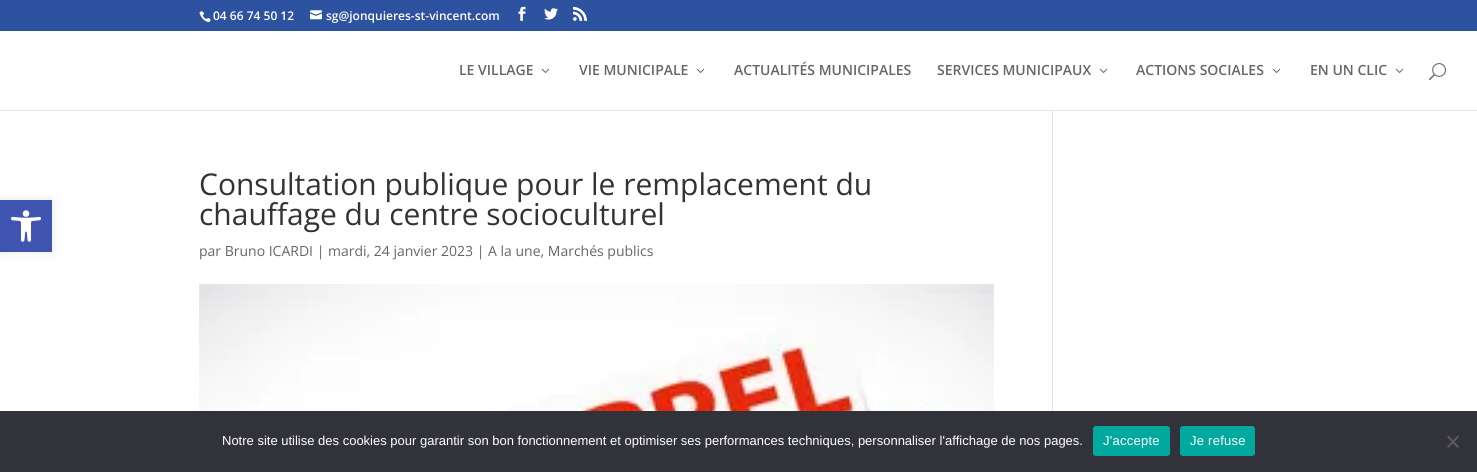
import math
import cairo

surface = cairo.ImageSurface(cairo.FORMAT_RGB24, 1477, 472)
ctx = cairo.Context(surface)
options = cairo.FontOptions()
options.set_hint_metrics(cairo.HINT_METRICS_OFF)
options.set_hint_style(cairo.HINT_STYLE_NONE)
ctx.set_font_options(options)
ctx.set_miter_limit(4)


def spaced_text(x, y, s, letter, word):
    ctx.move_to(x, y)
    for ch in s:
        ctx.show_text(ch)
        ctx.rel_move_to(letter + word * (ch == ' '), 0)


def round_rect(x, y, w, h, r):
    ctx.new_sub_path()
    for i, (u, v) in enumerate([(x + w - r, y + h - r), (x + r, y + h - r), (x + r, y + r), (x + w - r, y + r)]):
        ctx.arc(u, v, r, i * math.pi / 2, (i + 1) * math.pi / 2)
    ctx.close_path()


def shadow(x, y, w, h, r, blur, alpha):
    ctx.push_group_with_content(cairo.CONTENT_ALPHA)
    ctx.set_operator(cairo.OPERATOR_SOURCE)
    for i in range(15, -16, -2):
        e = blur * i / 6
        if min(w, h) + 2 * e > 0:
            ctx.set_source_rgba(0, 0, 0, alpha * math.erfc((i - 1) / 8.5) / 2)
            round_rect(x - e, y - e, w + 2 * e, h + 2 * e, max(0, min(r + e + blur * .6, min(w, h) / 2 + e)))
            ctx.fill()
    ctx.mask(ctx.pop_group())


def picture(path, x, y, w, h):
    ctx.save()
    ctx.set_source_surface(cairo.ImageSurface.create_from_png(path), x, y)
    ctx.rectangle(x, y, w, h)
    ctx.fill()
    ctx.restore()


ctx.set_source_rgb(1, 1, 1)
ctx.paint()
ctx.set_source_rgb(0, 0, 0)
shadow(0, 200, 52, 52, 0, 5, 0.1)
ctx.set_source_rgb(0.251, 0.329, 0.698)
ctx.rectangle(0, 200, 52, 52)
ctx.fill()
picture("img1.png", 11, 210, 30, 32)
ctx.set_source_rgb(0.176, 0.322, 0.624)
ctx.rectangle(0, 0, 1477, 31)
ctx.fill()
picture("img2.png", 199, 11, 12, 12)
ctx.select_font_face("Open Sans SemiBold")
ctx.set_font_size(12)
ctx.set_source_rgb(1, 1, 1)
ctx.move_to(213, 20)
ctx.show_text("04 66 74 50 12")
picture("img3.png", 310, 10, 12, 10)
ctx.move_to(326, 20)
ctx.show_text("sg@jonquieres-st-vincent.com")
picture("img4.png", 518, 6, 8, 15)
picture("img5.png", 544, 8, 14, 12)
picture("img6.png", 573, 6, 14, 15)
ctx.set_source_rgb(0.902, 0.902, 0.902)
ctx.rectangle(0, 110, 1477, 1)
ctx.fill()
ctx.set_font_size(14)
ctx.set_source_rgb(0.4, 0.4, 0.4)
ctx.move_to(459, 75)
ctx.show_text("LE VILLAGE")
picture("img7.png", 541, 68, 9, 5)
ctx.move_to(579, 75)
ctx.show_text("VIE MUNICIPALE")
picture("img7.png", 696, 68, 9, 5)
ctx.move_to(734, 75)
ctx.show_text("ACTUALITÉS MUNICIPALES")
ctx.move_to(937, 75)
ctx.show_text("SERVICES MUNICIPAUX")
picture("img7.png", 1099, 68, 9, 5)
ctx.move_to(1136, 75)
ctx.show_text("ACTIONS SOCIALES")
picture("img7.png", 1272, 68, 9, 5)
ctx.move_to(1310, 75)
ctx.show_text("EN UN CLIC")
picture("img7.png", 1395, 68, 9, 5)
picture("img8.png", 1429, 63, 17, 18)
ctx.select_font_face("Open Sans")
ctx.set_font_size(30)
ctx.set_source_rgb(0.2, 0.2, 0.2)
ctx.move_to(199, 195)
ctx.show_text("Consultation publique pour le remplacement du")
ctx.move_to(199, 225)
ctx.show_text("chauffage du centre socioculturel")
ctx.set_font_size(14)
ctx.set_source_rgb(0.4, 0.4, 0.4)
ctx.move_to(199, 256)
ctx.show_text("par Bruno ICARDI | mardi, 24 janvier 2023 | A la une, Marchés publics")
picture("img9.png", 199, 284, 795, 127)
ctx.set_source_rgb(0.886, 0.886, 0.886)
ctx.rectangle(1052, 111, 1, 300)
ctx.fill()
ctx.set_source_rgb(0.196, 0.196, 0.227)
ctx.rectangle(0, 411, 1477, 61)
ctx.fill()
ctx.select_font_face("Liberation Sans")
ctx.set_font_size(13)
ctx.set_source_rgb(1, 1, 1)
ctx.move_to(222, 445)
ctx.show_text("Notre site utilise des cookies pour garantir son bon fonctionnement et optimiser ses performances techniques, personnaliser l'affichage de nos pages.")
ctx.set_source_rgb(0, 0.663, 0.616)
round_rect(1093, 426, 77, 30, 3)
ctx.fill()
ctx.set_source_rgb(1, 1, 1)
spaced_text(1103, 445, "J'accepte", 0.25, 0)
ctx.set_source_rgb(0, 0.663, 0.616)
round_rect(1180, 426, 75, 30, 3)
ctx.fill()
ctx.set_source_rgb(1, 1, 1)
spaced_text(1190, 445, "Je refuse", 0.25, 0)
ctx.set_source_rgb(0.349, 0.349, 0.365)
ctx.new_path()
ctx.move_to(1457.5, 435.5)
ctx.line_to(1459, 437)
ctx.line_to(1448.5, 448)
ctx.line_to(1447, 446.5)
ctx.close_path()
ctx.fill()
ctx.new_path()
ctx.move_to(1447, 437)
ctx.line_to(1448.5, 435.5)
ctx.line_to(1459, 446.5)
ctx.line_to(1457.5, 448)
ctx.close_path()
ctx.fill()
surface.write_to_png("page.png")
